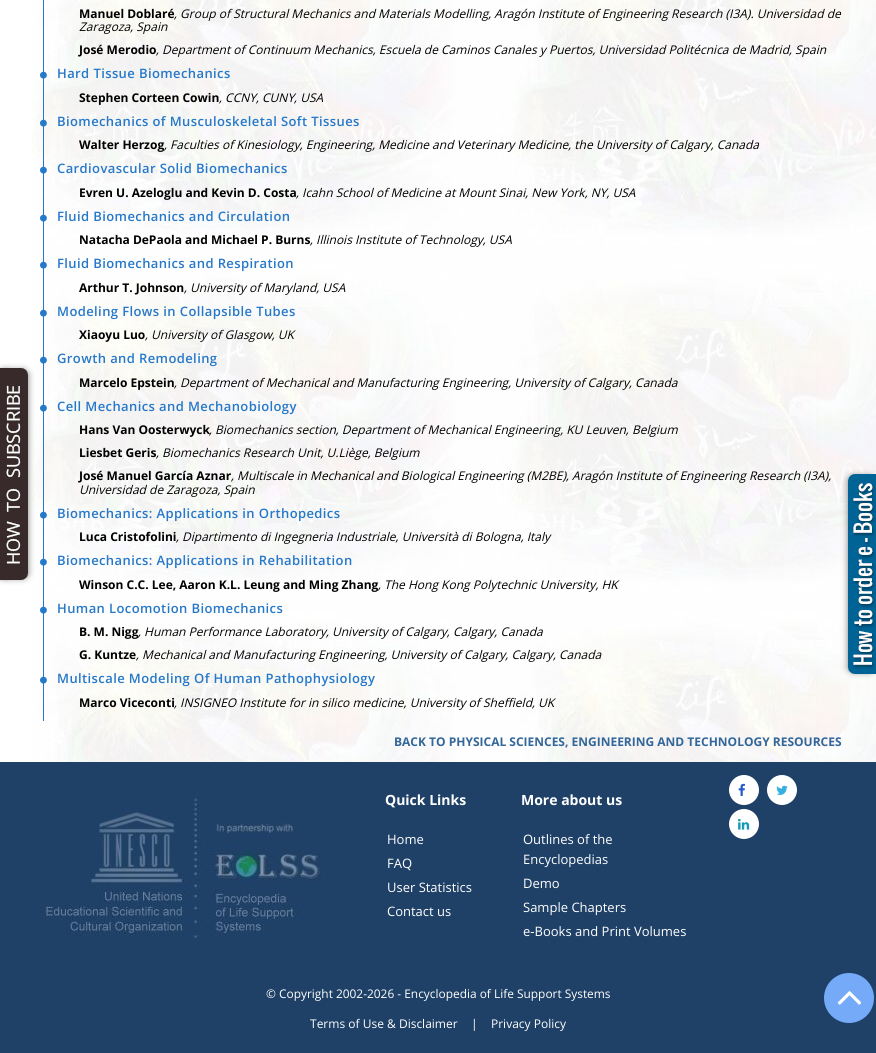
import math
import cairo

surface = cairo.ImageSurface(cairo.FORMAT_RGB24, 876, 1053)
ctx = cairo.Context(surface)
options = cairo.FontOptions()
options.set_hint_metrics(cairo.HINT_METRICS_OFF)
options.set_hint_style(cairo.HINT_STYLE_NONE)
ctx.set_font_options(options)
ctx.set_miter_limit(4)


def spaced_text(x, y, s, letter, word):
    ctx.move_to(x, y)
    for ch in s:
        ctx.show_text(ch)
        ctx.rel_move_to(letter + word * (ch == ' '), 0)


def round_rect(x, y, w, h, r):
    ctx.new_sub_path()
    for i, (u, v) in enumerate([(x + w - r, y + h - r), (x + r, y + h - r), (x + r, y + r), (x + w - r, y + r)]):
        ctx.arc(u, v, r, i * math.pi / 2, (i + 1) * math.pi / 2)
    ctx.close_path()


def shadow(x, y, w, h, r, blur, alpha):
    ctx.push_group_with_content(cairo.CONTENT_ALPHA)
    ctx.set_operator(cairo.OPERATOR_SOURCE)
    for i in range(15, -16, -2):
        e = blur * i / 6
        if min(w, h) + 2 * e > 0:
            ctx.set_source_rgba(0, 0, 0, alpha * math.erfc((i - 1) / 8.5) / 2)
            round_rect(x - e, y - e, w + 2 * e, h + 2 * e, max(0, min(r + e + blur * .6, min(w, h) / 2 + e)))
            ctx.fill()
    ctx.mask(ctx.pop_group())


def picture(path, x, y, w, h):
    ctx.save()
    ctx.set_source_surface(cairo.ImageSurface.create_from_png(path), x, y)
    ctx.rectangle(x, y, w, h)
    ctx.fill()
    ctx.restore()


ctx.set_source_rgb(1, 1, 1)
ctx.paint()
picture("img1.png", 32, 0, 844, 762)
ctx.set_source_rgb(0.6, 0.6, 0.6)
shadow(-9, 370, 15, 208, 0, 3, 1)
shadow(1, 369, 28, 210, 6, 3, 1)
picture("img2.png", 0, 368, 28, 212)
ctx.set_source_rgb(0.149, 0.471, 0.788)
ctx.rectangle(43, 0, 1, 721)
ctx.fill()
ctx.select_font_face("Open Sans", cairo.FONT_SLANT_NORMAL, cairo.FONT_WEIGHT_BOLD)
ctx.set_font_size(12)
ctx.set_source_rgb(0, 0, 0)
ctx.move_to(79, 18)
ctx.show_text("Manuel Doblaré")
ctx.select_font_face("Open Sans", cairo.FONT_SLANT_ITALIC)
ctx.move_to(174, 18)
ctx.show_text(", Group of Structural Mechanics and Materials Modelling, Aragón Institute of Engineering Research (I3A). Universidad de")
ctx.move_to(79, 31)
ctx.show_text("Zaragoza, Spain")
ctx.select_font_face("Open Sans", cairo.FONT_SLANT_NORMAL, cairo.FONT_WEIGHT_BOLD)
ctx.move_to(79, 54)
ctx.show_text("José Merodio")
ctx.select_font_face("Open Sans", cairo.FONT_SLANT_ITALIC)
ctx.move_to(156, 54)
ctx.show_text(", Department of Continuum Mechanics, Escuela de Caminos Canales y Puertos, Universidad Politécnica de Madrid, Spain")
picture("img3.png", 40, 71, 7, 8)
ctx.select_font_face("Open Sans SemiBold")
ctx.set_font_size(13)
ctx.set_source_rgb(0.149, 0.471, 0.788)
spaced_text(57, 78, "Hard Tissue Biomechanics", 0.4, 0)
ctx.select_font_face("Open Sans", cairo.FONT_SLANT_NORMAL, cairo.FONT_WEIGHT_BOLD)
ctx.set_font_size(12)
ctx.set_source_rgb(0, 0, 0)
ctx.move_to(79, 102)
ctx.show_text("Stephen Corteen Cowin")
ctx.select_font_face("Open Sans", cairo.FONT_SLANT_ITALIC)
ctx.move_to(219, 102)
ctx.show_text(", CCNY, CUNY, USA")
picture("img4.png", 40, 119, 7, 8)
ctx.select_font_face("Open Sans SemiBold")
ctx.set_font_size(13)
ctx.set_source_rgb(0.149, 0.471, 0.788)
spaced_text(57, 126, "Biomechanics of Musculoskeletal Soft Tissues", 0.4, 0)
ctx.select_font_face("Open Sans", cairo.FONT_SLANT_NORMAL, cairo.FONT_WEIGHT_BOLD)
ctx.set_font_size(12)
ctx.set_source_rgb(0, 0, 0)
ctx.move_to(79, 149)
ctx.show_text("Walter Herzog")
ctx.select_font_face("Open Sans", cairo.FONT_SLANT_ITALIC)
ctx.move_to(164, 149)
ctx.show_text(", Faculties of Kinesiology, Engineering, Medicine and Veterinary Medicine, the University of Calgary, Canada")
picture("img5.png", 40, 166, 7, 8)
ctx.select_font_face("Open Sans SemiBold")
ctx.set_font_size(13)
ctx.set_source_rgb(0.149, 0.471, 0.788)
spaced_text(57, 173, "Cardiovascular Solid Biomechanics", 0.4, 0)
ctx.select_font_face("Open Sans", cairo.FONT_SLANT_NORMAL, cairo.FONT_WEIGHT_BOLD)
ctx.set_font_size(12)
ctx.set_source_rgb(0, 0, 0)
ctx.move_to(79, 197)
ctx.show_text("Evren U. Azeloglu and Kevin D. Costa")
ctx.select_font_face("Open Sans", cairo.FONT_SLANT_ITALIC)
ctx.move_to(296, 197)
ctx.show_text(", Icahn School of Medicine at Mount Sinai, New York, NY, USA")
picture("img5.png", 40, 214, 7, 8)
ctx.select_font_face("Open Sans SemiBold")
ctx.set_font_size(13)
ctx.set_source_rgb(0.149, 0.471, 0.788)
spaced_text(57, 221, "Fluid Biomechanics and Circulation", 0.4, 0)
ctx.select_font_face("Open Sans", cairo.FONT_SLANT_NORMAL, cairo.FONT_WEIGHT_BOLD)
ctx.set_font_size(12)
ctx.set_source_rgb(0, 0, 0)
ctx.move_to(79, 244)
ctx.show_text("Natacha DePaola and Michael P. Burns")
ctx.select_font_face("Open Sans", cairo.FONT_SLANT_ITALIC)
ctx.move_to(310, 244)
ctx.show_text(", Illinois Institute of Technology, USA")
picture("img5.png", 40, 261, 7, 8)
ctx.select_font_face("Open Sans SemiBold")
ctx.set_font_size(13)
ctx.set_source_rgb(0.149, 0.471, 0.788)
spaced_text(57, 268, "Fluid Biomechanics and Respiration", 0.4, 0)
ctx.select_font_face("Open Sans", cairo.FONT_SLANT_NORMAL, cairo.FONT_WEIGHT_BOLD)
ctx.set_font_size(12)
ctx.set_source_rgb(0, 0, 0)
ctx.move_to(79, 292)
ctx.show_text("Arthur T. Johnson")
ctx.select_font_face("Open Sans", cairo.FONT_SLANT_ITALIC)
ctx.move_to(184, 292)
ctx.show_text(", University of Maryland, USA")
picture("img5.png", 40, 309, 7, 8)
ctx.select_font_face("Open Sans SemiBold")
ctx.set_font_size(13)
ctx.set_source_rgb(0.149, 0.471, 0.788)
spaced_text(57, 316, "Modeling Flows in Collapsible Tubes", 0.4, 0)
ctx.select_font_face("Open Sans", cairo.FONT_SLANT_NORMAL, cairo.FONT_WEIGHT_BOLD)
ctx.set_font_size(12)
ctx.set_source_rgb(0, 0, 0)
ctx.move_to(79, 339)
ctx.show_text("Xiaoyu Luo")
ctx.select_font_face("Open Sans", cairo.FONT_SLANT_ITALIC)
ctx.move_to(145, 339)
ctx.show_text(", University of Glasgow, UK")
picture("img6.png", 40, 356, 7, 8)
ctx.select_font_face("Open Sans SemiBold")
ctx.set_font_size(13)
ctx.set_source_rgb(0.149, 0.471, 0.788)
spaced_text(57, 363, "Growth and Remodeling", 0.4, 0)
ctx.select_font_face("Open Sans", cairo.FONT_SLANT_NORMAL, cairo.FONT_WEIGHT_BOLD)
ctx.set_font_size(12)
ctx.set_source_rgb(0, 0, 0)
ctx.move_to(79, 387)
ctx.show_text("Marcelo Epstein")
ctx.select_font_face("Open Sans", cairo.FONT_SLANT_ITALIC)
ctx.move_to(174, 387)
ctx.show_text(", Department of Mechanical and Manufacturing Engineering, University of Calgary, Canada")
picture("img7.png", 40, 404, 7, 8)
ctx.select_font_face("Open Sans SemiBold")
ctx.set_font_size(13)
ctx.set_source_rgb(0.149, 0.471, 0.788)
spaced_text(57, 411, "Cell Mechanics and Mechanobiology", 0.4, 0)
ctx.select_font_face("Open Sans", cairo.FONT_SLANT_NORMAL, cairo.FONT_WEIGHT_BOLD)
ctx.set_font_size(12)
ctx.set_source_rgb(0, 0, 0)
ctx.move_to(79, 434)
ctx.show_text("Hans Van Oosterwyck")
ctx.select_font_face("Open Sans", cairo.FONT_SLANT_ITALIC)
ctx.move_to(209, 434)
ctx.show_text(", Biomechanics section, Department of Mechanical Engineering, KU Leuven, Belgium")
ctx.select_font_face("Open Sans", cairo.FONT_SLANT_NORMAL, cairo.FONT_WEIGHT_BOLD)
ctx.move_to(79, 457)
ctx.show_text("Liesbet Geris")
ctx.select_font_face("Open Sans", cairo.FONT_SLANT_ITALIC)
ctx.move_to(156, 457)
ctx.show_text(", Biomechanics Research Unit, U.Liège, Belgium")
ctx.select_font_face("Open Sans", cairo.FONT_SLANT_NORMAL, cairo.FONT_WEIGHT_BOLD)
ctx.move_to(79, 480)
ctx.show_text("José Manuel García Aznar")
ctx.select_font_face("Open Sans", cairo.FONT_SLANT_ITALIC)
ctx.move_to(231, 480)
ctx.show_text(", Multiscale in Mechanical and Biological Engineering (M2BE), Aragón Institute of Engineering Research (I3A),")
ctx.move_to(79, 494)
ctx.show_text("Universidad de Zaragoza, Spain")
picture("img8.png", 40, 511, 7, 8)
ctx.select_font_face("Open Sans SemiBold")
ctx.set_font_size(13)
ctx.set_source_rgb(0.149, 0.471, 0.788)
spaced_text(57, 518, "Biomechanics: Applications in Orthopedics", 0.4, 0)
ctx.select_font_face("Open Sans", cairo.FONT_SLANT_NORMAL, cairo.FONT_WEIGHT_BOLD)
ctx.set_font_size(12)
ctx.set_source_rgb(0, 0, 0)
ctx.move_to(79, 541)
ctx.show_text("Luca Cristofolini")
ctx.select_font_face("Open Sans", cairo.FONT_SLANT_ITALIC)
ctx.move_to(176, 541)
ctx.show_text(", Dipartimento di Ingegneria Industriale, Università di Bologna, Italy")
picture("img5.png", 40, 558, 7, 8)
ctx.select_font_face("Open Sans SemiBold")
ctx.set_font_size(13)
ctx.set_source_rgb(0.149, 0.471, 0.788)
spaced_text(57, 565, "Biomechanics: Applications in Rehabilitation", 0.4, 0)
ctx.select_font_face("Open Sans", cairo.FONT_SLANT_NORMAL, cairo.FONT_WEIGHT_BOLD)
ctx.set_font_size(12)
ctx.set_source_rgb(0, 0, 0)
ctx.move_to(79, 589)
ctx.show_text("Winson C.C. Lee, Aaron K.L. Leung and Ming Zhang")
ctx.select_font_face("Open Sans", cairo.FONT_SLANT_ITALIC)
ctx.move_to(378, 589)
ctx.show_text(", The Hong Kong Polytechnic University, HK")
picture("img5.png", 40, 606, 7, 8)
ctx.select_font_face("Open Sans SemiBold")
ctx.set_font_size(13)
ctx.set_source_rgb(0.149, 0.471, 0.788)
spaced_text(57, 613, "Human Locomotion Biomechanics", 0.4, 0)
ctx.select_font_face("Open Sans", cairo.FONT_SLANT_NORMAL, cairo.FONT_WEIGHT_BOLD)
ctx.set_font_size(12)
ctx.set_source_rgb(0, 0, 0)
ctx.move_to(79, 636)
ctx.show_text("B. M. Nigg")
ctx.select_font_face("Open Sans", cairo.FONT_SLANT_ITALIC)
ctx.move_to(138, 636)
ctx.show_text(", Human Performance Laboratory, University of Calgary, Calgary, Canada")
ctx.select_font_face("Open Sans", cairo.FONT_SLANT_NORMAL, cairo.FONT_WEIGHT_BOLD)
ctx.move_to(79, 659)
ctx.show_text("G. Kuntze")
ctx.select_font_face("Open Sans", cairo.FONT_SLANT_ITALIC)
ctx.move_to(136, 659)
ctx.show_text(", Mechanical and Manufacturing Engineering, University of Calgary, Calgary, Canada")
picture("img5.png", 40, 676, 7, 8)
ctx.select_font_face("Open Sans SemiBold")
ctx.set_font_size(13)
ctx.set_source_rgb(0.149, 0.471, 0.788)
spaced_text(57, 683, "Multiscale Modeling Of Human Pathophysiology", 0.4, 0)
ctx.select_font_face("Open Sans", cairo.FONT_SLANT_NORMAL, cairo.FONT_WEIGHT_BOLD)
ctx.set_font_size(12)
ctx.set_source_rgb(0, 0, 0)
ctx.move_to(79, 707)
ctx.show_text("Marco Viceconti")
ctx.select_font_face("Open Sans", cairo.FONT_SLANT_ITALIC)
ctx.move_to(174, 707)
ctx.show_text(", INSIGNEO Institute for in silico medicine, University of Sheffield, UK")
ctx.set_source_rgb(1, 1, 1)
ctx.new_path()
ctx.arc(60, 742, 2, 0, 2 * math.pi)
ctx.fill()
ctx.select_font_face("Open Sans", cairo.FONT_SLANT_NORMAL, cairo.FONT_WEIGHT_BOLD)
ctx.set_source_rgb(0.2, 0.4, 0.6)
ctx.move_to(394, 746)
ctx.show_text("BACK TO PHYSICAL SCIENCES, ENGINEERING AND TECHNOLOGY RESOURCES")
ctx.set_source_rgb(0.6, 0.6, 0.6)
shadow(847, 475, 28, 198, 6, 3, 1)
picture("img9.png", 848, 474, 28, 200)
ctx.set_source_rgb(0.122, 0.255, 0.404)
ctx.rectangle(0, 762, 876, 291)
ctx.fill()
picture("img10.png", 42, 798, 280, 143)
ctx.set_font_size(14)
ctx.set_source_rgb(1, 1, 1)
ctx.move_to(385, 805)
ctx.show_text("Quick Links")
ctx.select_font_face("Open Sans")
ctx.set_font_size(13)
ctx.move_to(387, 844)
ctx.show_text("Home")
ctx.move_to(387, 868)
ctx.show_text("FAQ")
ctx.move_to(387, 892)
ctx.show_text("User Statistics")
ctx.move_to(387, 916)
ctx.show_text("Contact us")
ctx.select_font_face("Open Sans", cairo.FONT_SLANT_NORMAL, cairo.FONT_WEIGHT_BOLD)
ctx.set_font_size(14)
ctx.move_to(521, 805)
ctx.show_text("More about us")
ctx.select_font_face("Open Sans")
ctx.set_font_size(13)
ctx.move_to(523, 844)
ctx.show_text("Outlines of the")
ctx.move_to(523, 864)
ctx.show_text("Encyclopedias")
ctx.move_to(523, 888)
ctx.show_text("Demo")
ctx.move_to(523, 912)
ctx.show_text("Sample Chapters")
ctx.move_to(523, 936)
ctx.show_text("e-Books and Print Volumes")
ctx.new_path()
ctx.arc(744, 790, 15, 0, 2 * math.pi)
ctx.fill()
picture("img11.png", 738, 783, 7, 13)
ctx.arc(782, 790, 15, 0, 2 * math.pi)
ctx.fill()
picture("img12.png", 776, 785, 12, 10)
ctx.arc(744, 824, 15, 0, 2 * math.pi)
ctx.fill()
picture("img13.png", 738, 818, 12, 12)
ctx.set_font_size(11.9)
ctx.move_to(266, 998)
ctx.show_text("© Copyright 2002-2026 - Encyclopedia of Life Support Systems")
ctx.set_font_size(12)
ctx.move_to(310, 1028)
ctx.show_text("Terms of Use & Disclaimer")
ctx.move_to(471, 1028)
ctx.show_text("|")
ctx.move_to(491, 1028)
ctx.show_text("Privacy Policy")
ctx.set_source_rgb(0.455, 0.667, 0.969)
ctx.new_path()
ctx.arc(849, 998, 25, 0, 2 * math.pi)
ctx.fill()
picture("img14.png", 837, 991, 25, 14)
surface.write_to_png("page.png")
